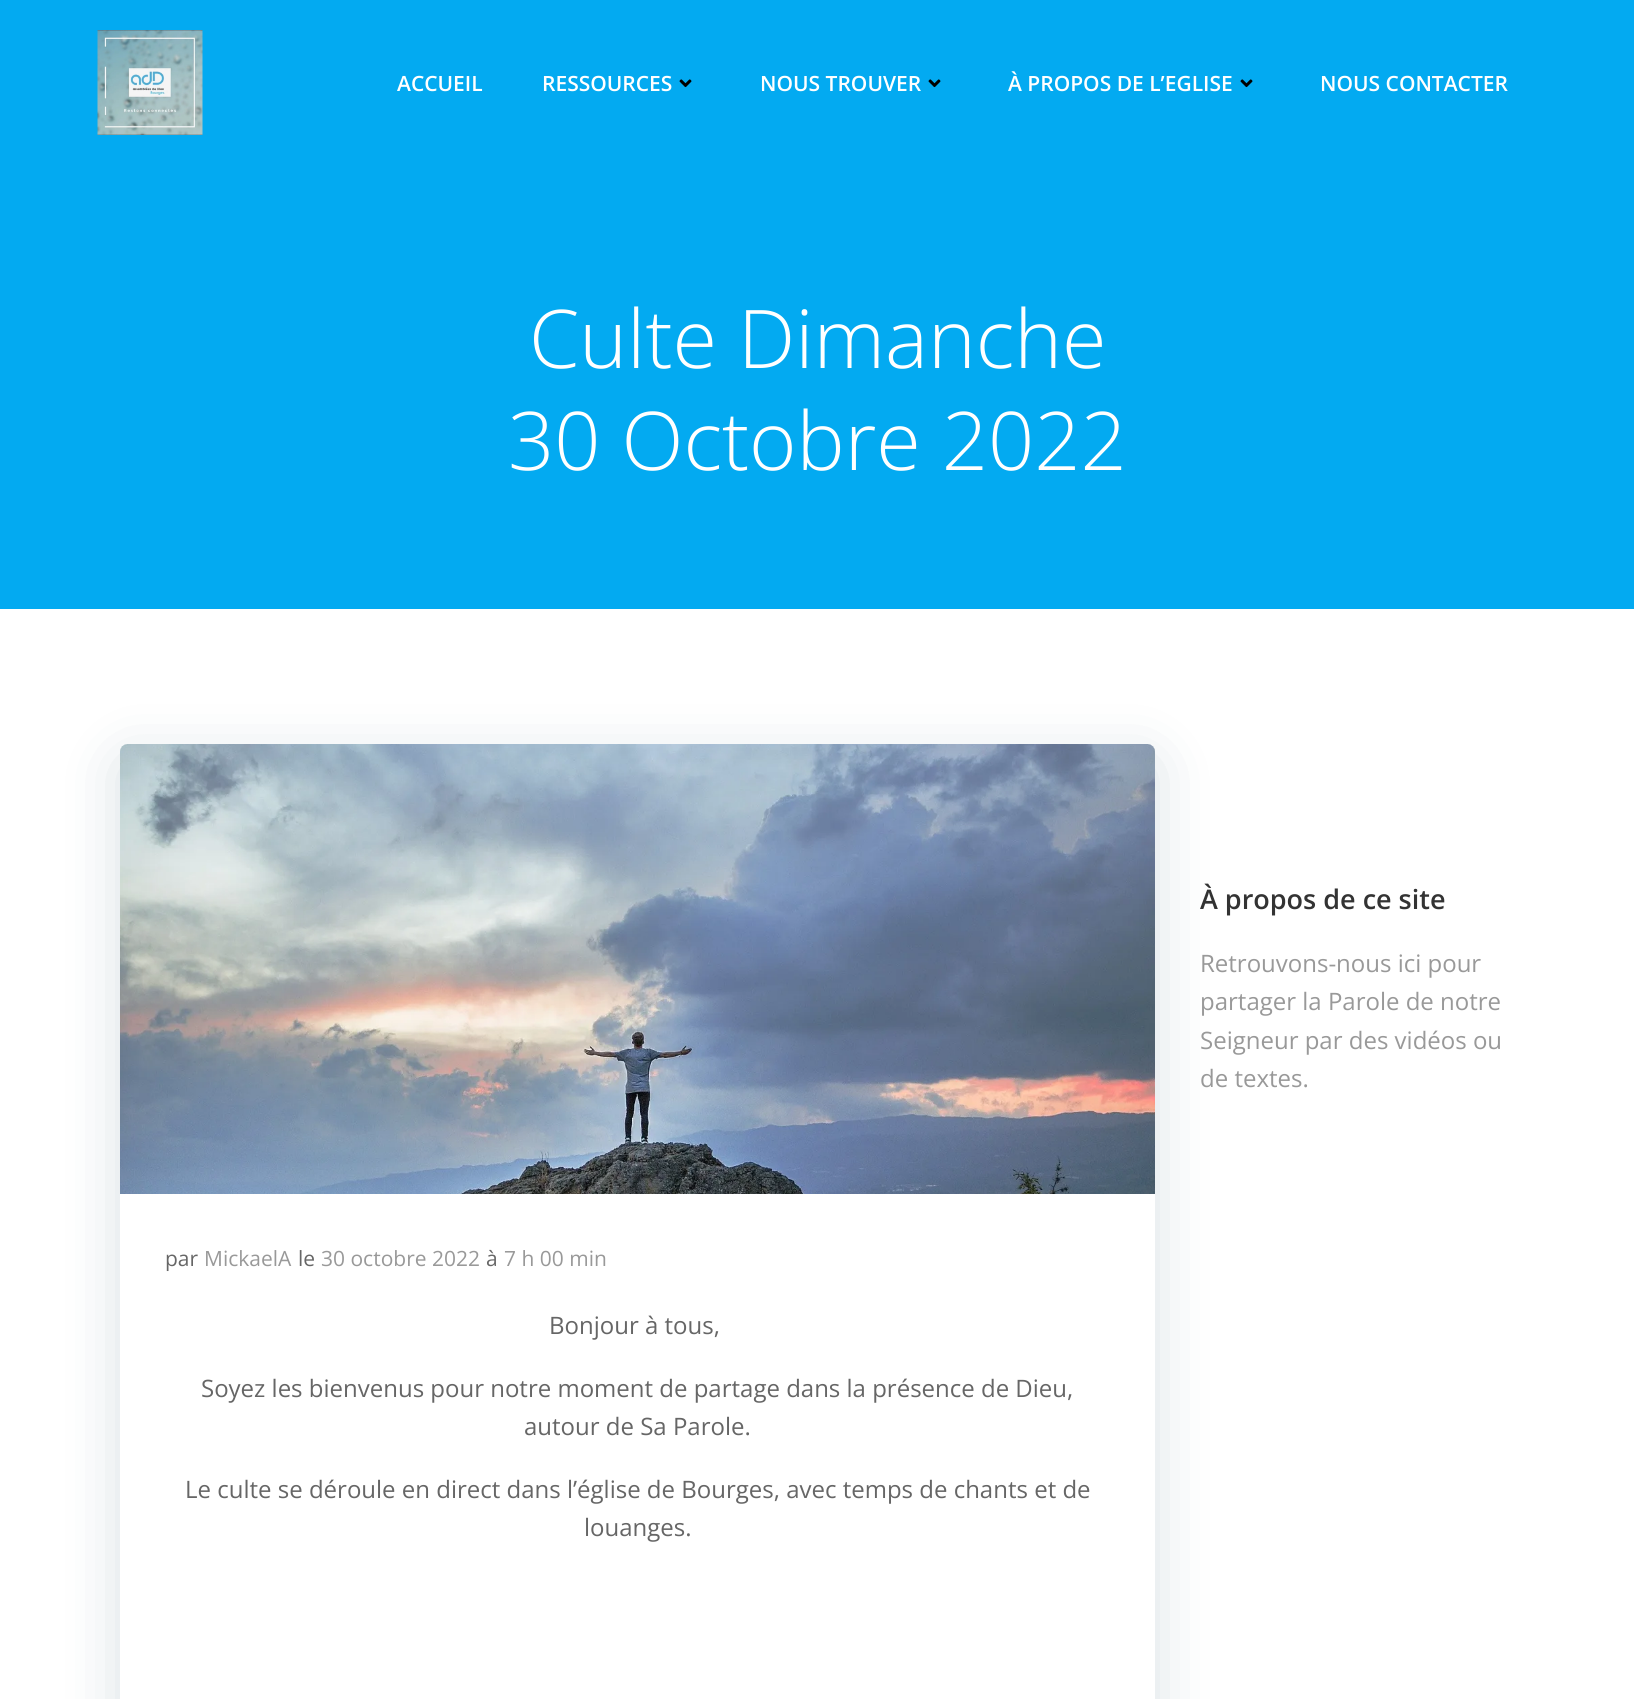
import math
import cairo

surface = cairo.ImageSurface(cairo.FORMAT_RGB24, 1634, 1699)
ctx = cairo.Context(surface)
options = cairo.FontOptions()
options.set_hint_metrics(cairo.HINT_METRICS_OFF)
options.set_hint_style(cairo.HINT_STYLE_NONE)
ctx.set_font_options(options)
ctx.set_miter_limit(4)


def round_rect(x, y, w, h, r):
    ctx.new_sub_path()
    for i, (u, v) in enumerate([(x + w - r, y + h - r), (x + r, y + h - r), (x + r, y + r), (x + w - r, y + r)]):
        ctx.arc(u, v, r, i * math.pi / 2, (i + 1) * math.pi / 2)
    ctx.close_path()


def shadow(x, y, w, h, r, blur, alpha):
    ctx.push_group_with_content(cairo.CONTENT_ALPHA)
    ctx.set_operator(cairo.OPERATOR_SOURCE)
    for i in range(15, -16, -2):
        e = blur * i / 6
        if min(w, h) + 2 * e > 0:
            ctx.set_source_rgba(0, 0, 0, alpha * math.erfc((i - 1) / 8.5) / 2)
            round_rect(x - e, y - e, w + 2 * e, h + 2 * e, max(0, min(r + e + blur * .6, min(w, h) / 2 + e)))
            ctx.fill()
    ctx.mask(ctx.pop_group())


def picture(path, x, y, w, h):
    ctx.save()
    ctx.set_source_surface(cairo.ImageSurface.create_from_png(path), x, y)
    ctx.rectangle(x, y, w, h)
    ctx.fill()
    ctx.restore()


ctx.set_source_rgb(1, 1, 1)
ctx.paint()
ctx.set_source_rgb(0.012, 0.667, 0.945)
ctx.rectangle(0, 0, 1634, 609)
ctx.fill()
picture("img1.png", 97, 30, 106, 105)
ctx.select_font_face("Open Sans SemiBold")
ctx.set_font_size(21)
ctx.set_source_rgb(1, 1, 1)
ctx.move_to(397, 91)
ctx.show_text("ACCUEIL")
ctx.move_to(542, 91)
ctx.show_text("RESSOURCES")
picture("img2.png", 679, 79, 13, 9)
ctx.move_to(760, 91)
ctx.show_text("NOUS TROUVER")
picture("img2.png", 928, 79, 13, 9)
ctx.move_to(1008, 91)
ctx.show_text("À PROPOS DE L’EGLISE")
picture("img2.png", 1240, 79, 13, 9)
ctx.move_to(1320, 91)
ctx.show_text("NOUS CONTACTER")
ctx.select_font_face("Open Sans Light")
ctx.set_font_size(81)
ctx.move_to(529, 368)
ctx.show_text("Culte Dimanche")
ctx.move_to(508, 470)
ctx.show_text("30 Octobre 2022")
ctx.save()
ctx.set_fill_rule(cairo.FILL_RULE_EVEN_ODD)
ctx.new_path()
ctx.move_to(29, 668)
ctx.line_to(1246, 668)
ctx.line_to(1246, 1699)
ctx.line_to(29, 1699)
ctx.close_path()
ctx.move_to(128, 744)
ctx.line_to(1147, 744)
ctx.curve_to(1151.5, 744, 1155, 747.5, 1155, 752)
ctx.line_to(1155, 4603)
ctx.curve_to(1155, 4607.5, 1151.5, 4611, 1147, 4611)
ctx.line_to(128, 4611)
ctx.curve_to(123.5, 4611, 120, 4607.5, 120, 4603)
ctx.line_to(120, 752)
ctx.curve_to(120, 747.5, 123.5, 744, 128, 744)
ctx.close_path()
ctx.clip()
ctx.set_source_rgb(0.004, 0.2, 0.29)
shadow(120, 759, 1035, 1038, 8, 30, 0.15)
ctx.restore()
ctx.select_font_face("Open Sans SemiBold")
ctx.set_font_size(27)
ctx.set_source_rgb(0.2, 0.2, 0.2)
ctx.move_to(1200, 909)
ctx.show_text("À propos de ce site")
ctx.select_font_face("Open Sans")
ctx.set_font_size(24)
ctx.set_source_rgb(0.6, 0.6, 0.6)
ctx.move_to(1200, 972)
ctx.show_text("Retrouvons-nous ici pour")
ctx.move_to(1200, 1010)
ctx.show_text("partager la Parole de notre")
ctx.move_to(1200, 1049)
ctx.show_text("Seigneur par des vidéos ou")
ctx.move_to(1200, 1087)
ctx.show_text("de textes.")
picture("img3.png", 120, 744, 1035, 450)
ctx.set_font_size(21)
ctx.set_source_rgb(0.4, 0.4, 0.4)
ctx.move_to(165, 1266)
ctx.show_text("par")
ctx.set_source_rgb(0.6, 0.6, 0.6)
ctx.move_to(204, 1266)
ctx.show_text("MickaelA")
ctx.set_source_rgb(0.4, 0.4, 0.4)
ctx.move_to(298, 1266)
ctx.show_text("le")
ctx.set_source_rgb(0.6, 0.6, 0.6)
ctx.move_to(321, 1266)
ctx.show_text("30 octobre 2022")
ctx.set_source_rgb(0.4, 0.4, 0.4)
ctx.move_to(486, 1266)
ctx.show_text("à")
ctx.set_source_rgb(0.6, 0.6, 0.6)
ctx.move_to(504, 1266)
ctx.show_text("7 h 00 min")
ctx.set_font_size(24)
ctx.set_source_rgb(0.4, 0.4, 0.4)
ctx.move_to(549, 1334)
ctx.show_text("Bonjour à tous,")
ctx.move_to(201, 1397)
ctx.show_text("Soyez les bienvenus pour notre moment de partage dans la présence de Dieu,")
ctx.move_to(524, 1435)
ctx.show_text("autour de Sa Parole.")
ctx.move_to(185, 1498)
ctx.show_text("Le culte se déroule en direct dans l’église de Bourges, avec temps de chants et de")
ctx.move_to(584, 1536)
ctx.show_text("louanges.")
surface.write_to_png("page.png")
